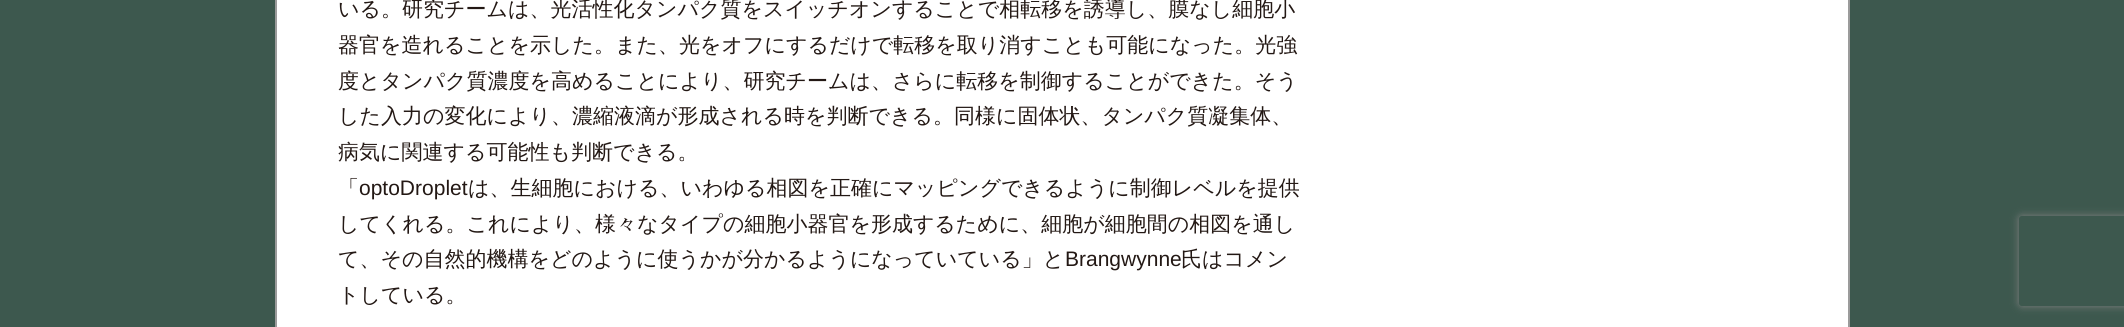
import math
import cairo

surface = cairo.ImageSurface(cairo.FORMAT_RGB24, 2124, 327)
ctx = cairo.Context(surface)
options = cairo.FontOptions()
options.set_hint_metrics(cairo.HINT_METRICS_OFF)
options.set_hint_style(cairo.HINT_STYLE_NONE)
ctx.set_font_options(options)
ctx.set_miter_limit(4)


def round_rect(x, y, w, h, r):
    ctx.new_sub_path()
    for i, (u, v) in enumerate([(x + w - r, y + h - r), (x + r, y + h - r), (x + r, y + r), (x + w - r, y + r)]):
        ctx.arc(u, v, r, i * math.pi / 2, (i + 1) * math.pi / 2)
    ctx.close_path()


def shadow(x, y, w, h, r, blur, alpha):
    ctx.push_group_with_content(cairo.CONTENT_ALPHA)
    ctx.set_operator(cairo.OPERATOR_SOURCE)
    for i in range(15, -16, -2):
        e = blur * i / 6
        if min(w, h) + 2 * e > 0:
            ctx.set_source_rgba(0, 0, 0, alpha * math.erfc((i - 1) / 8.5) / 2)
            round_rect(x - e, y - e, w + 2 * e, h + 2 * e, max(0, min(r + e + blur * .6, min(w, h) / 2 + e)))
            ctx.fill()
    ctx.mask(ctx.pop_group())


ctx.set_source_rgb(0.239, 0.345, 0.306)
ctx.paint()
ctx.set_source_rgb(1, 1, 1)
ctx.rectangle(277, 0, 1571, 327)
ctx.fill()
ctx.set_source_rgb(0.608, 0.608, 0.608)
ctx.rectangle(1848, 0, 2, 327)
ctx.fill()
ctx.rectangle(275, 0, 2, 327)
ctx.fill()
ctx.select_font_face("WenQuanYi Zen Hei Medium")
ctx.set_font_size(21)
ctx.set_source_rgb(0.137, 0.094, 0.082)
ctx.move_to(338, 16)
ctx.show_text("いる。研究チームは、光活性化タンパク質をスイッチオンすることで相転移を誘導し、膜なし細胞小")
ctx.move_to(338, 52)
ctx.show_text("器官を造れることを示した。また、光をオフにするだけで転移を取り消すことも可能になった。光強")
ctx.move_to(338, 88)
ctx.show_text("度とタンパク質濃度を高めることにより、研究チームは、さらに転移を制御することができた。そう")
ctx.move_to(338, 123)
ctx.show_text("した入力の変化により、濃縮液滴が形成される時を判断できる。同様に固体状、タンパク質凝集体、")
ctx.move_to(338, 159)
ctx.show_text("病気に関連する可能性も判断できる。")
ctx.move_to(338, 195)
ctx.show_text("「")
ctx.select_font_face("Liberation Sans")
ctx.move_to(359, 195)
ctx.show_text("optoDroplet")
ctx.select_font_face("WenQuanYi Zen Hei Medium")
ctx.move_to(468, 195)
ctx.show_text("は、生細胞における、いわゆる相図を正確にマッピングできるように制御レベルを提供")
ctx.move_to(338, 231)
ctx.show_text("してくれる。これにより、様々なタイプの細胞小器官を形成するために、細胞が細胞間の相図を通し")
ctx.move_to(338, 266)
ctx.show_text("て、その自然的機構をどのように使うかが分かるようになっていている」と")
ctx.select_font_face("Liberation Sans")
ctx.move_to(1065, 266)
ctx.show_text("Brangwynne")
ctx.select_font_face("WenQuanYi Zen Hei Medium")
ctx.move_to(1181, 266)
ctx.show_text("氏はコメン")
ctx.move_to(338, 302)
ctx.show_text("トしている。")
ctx.save()
ctx.set_fill_rule(cairo.FILL_RULE_EVEN_ODD)
ctx.new_path()
ctx.move_to(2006, 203)
ctx.line_to(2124, 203)
ctx.line_to(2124, 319)
ctx.line_to(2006, 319)
ctx.close_path()
ctx.move_to(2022, 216)
ctx.line_to(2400, 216)
ctx.curve_to(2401.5, 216, 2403, 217.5, 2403, 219)
ctx.line_to(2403, 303)
ctx.curve_to(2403, 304.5, 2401.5, 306, 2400, 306)
ctx.line_to(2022, 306)
ctx.curve_to(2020.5, 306, 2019, 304.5, 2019, 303)
ctx.line_to(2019, 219)
ctx.curve_to(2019, 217.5, 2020.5, 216, 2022, 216)
ctx.close_path()
ctx.clip()
ctx.set_source_rgb(0.502, 0.502, 0.502)
shadow(2019, 216, 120, 90, 3, 4, 1)
ctx.restore()
surface.write_to_png("page.png")
